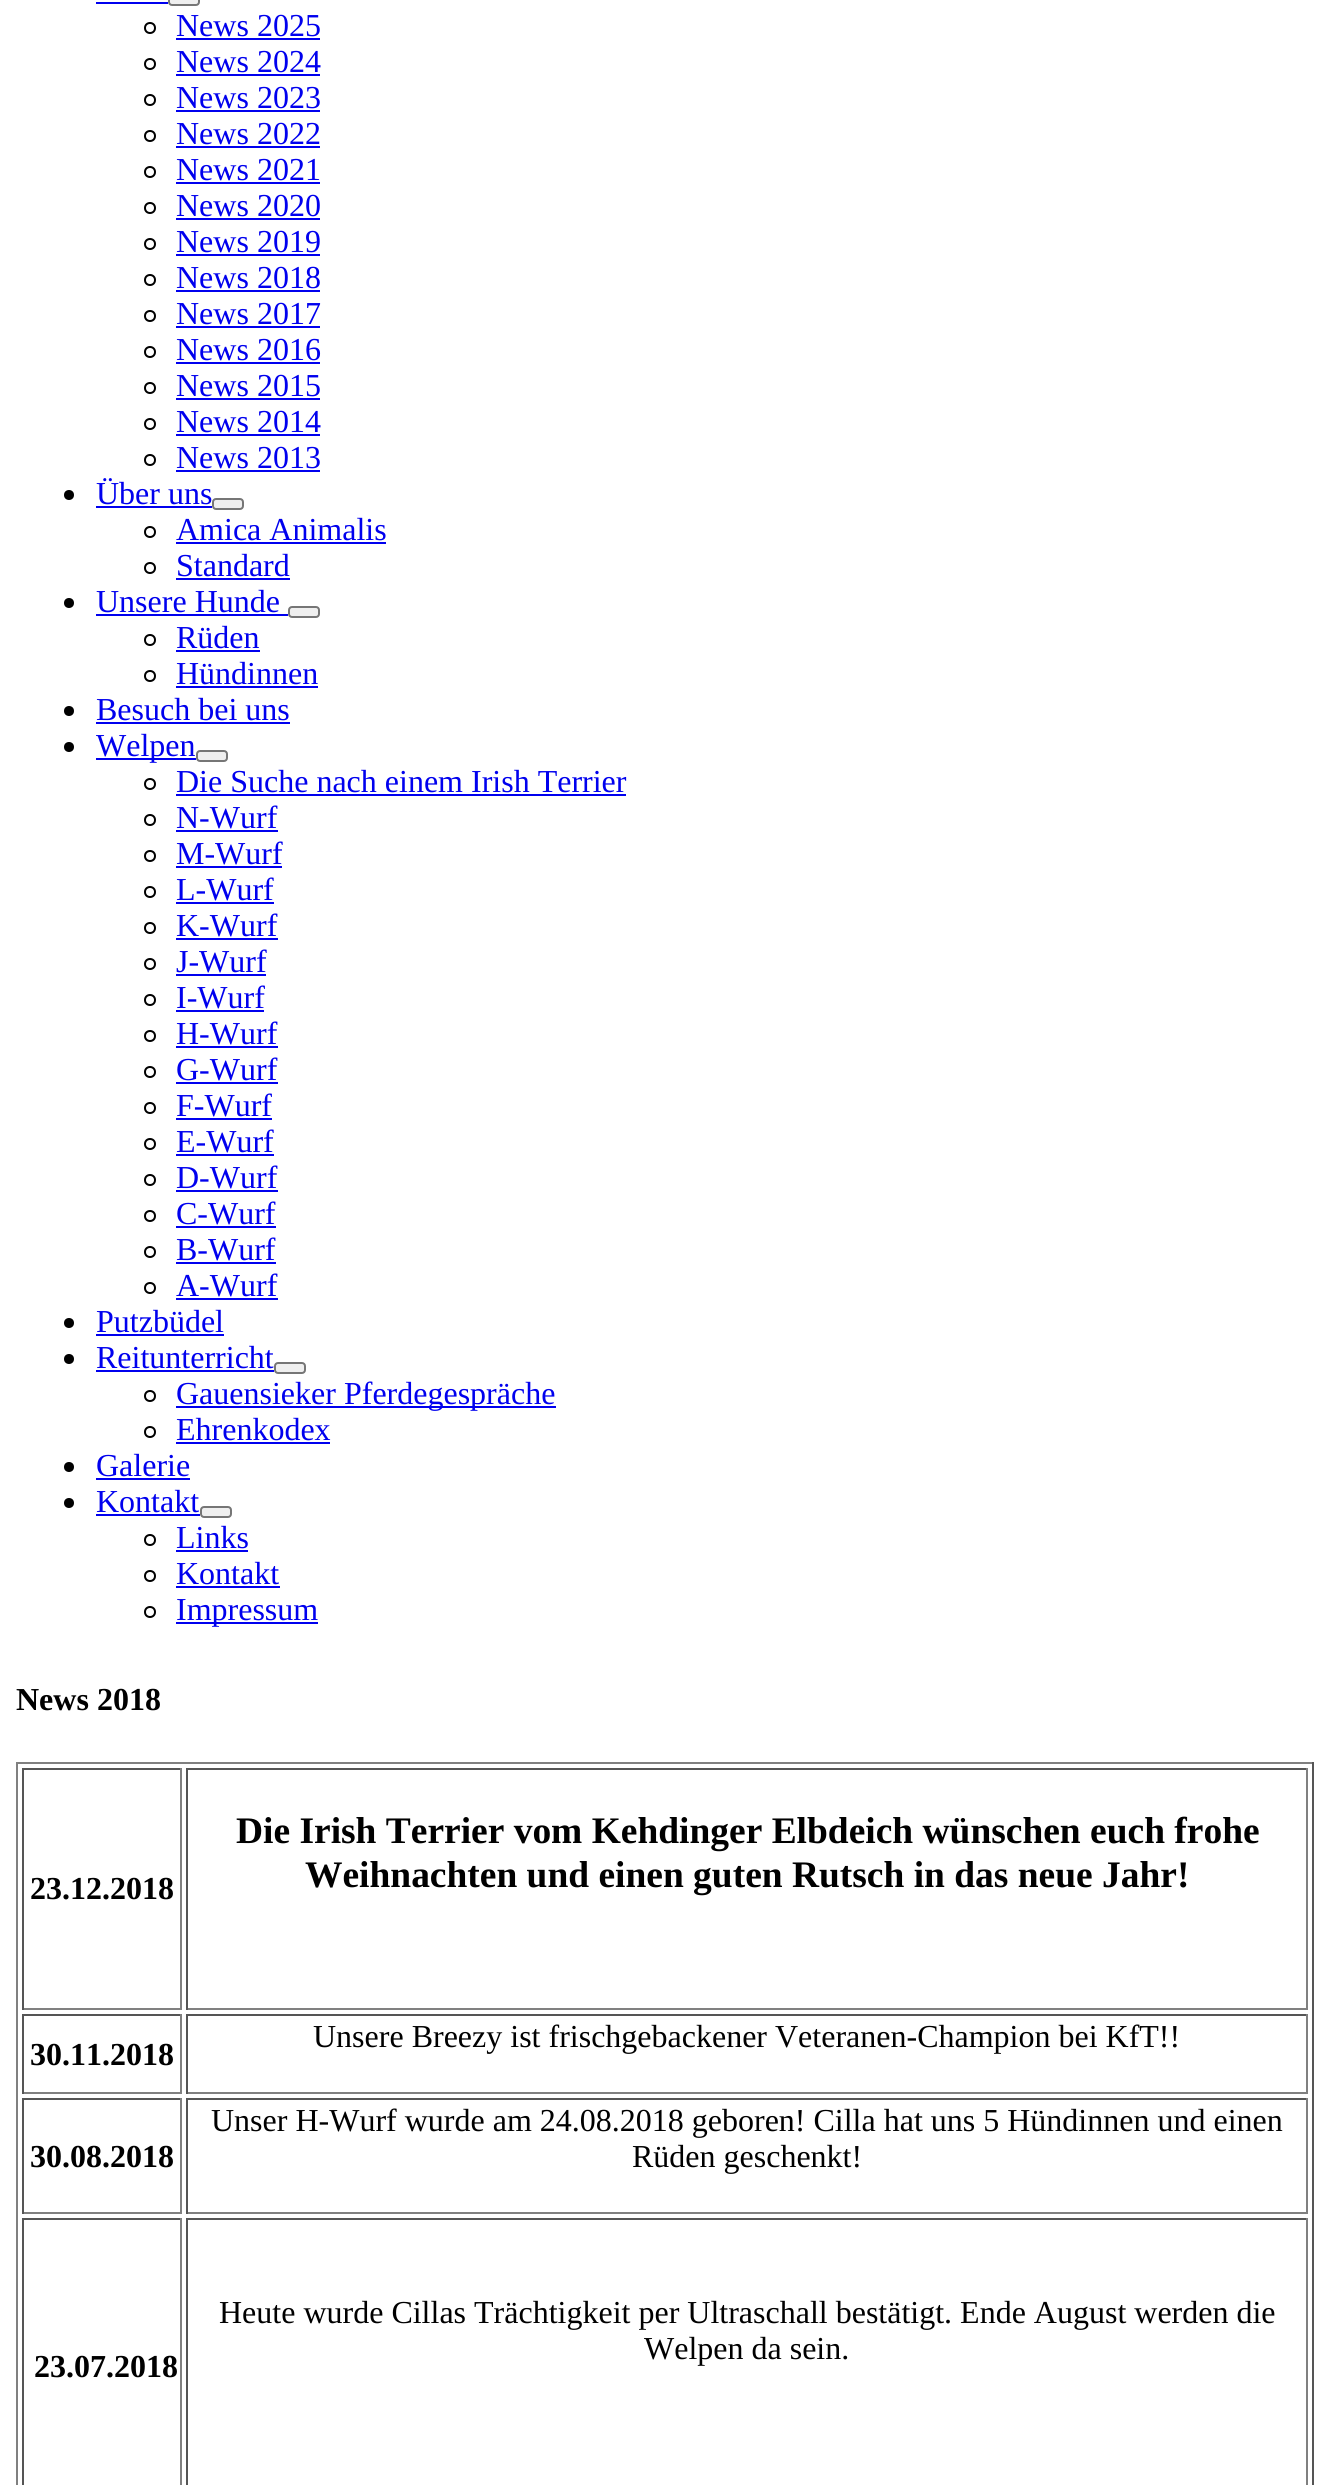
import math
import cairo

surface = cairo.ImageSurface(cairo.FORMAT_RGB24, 1329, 2485)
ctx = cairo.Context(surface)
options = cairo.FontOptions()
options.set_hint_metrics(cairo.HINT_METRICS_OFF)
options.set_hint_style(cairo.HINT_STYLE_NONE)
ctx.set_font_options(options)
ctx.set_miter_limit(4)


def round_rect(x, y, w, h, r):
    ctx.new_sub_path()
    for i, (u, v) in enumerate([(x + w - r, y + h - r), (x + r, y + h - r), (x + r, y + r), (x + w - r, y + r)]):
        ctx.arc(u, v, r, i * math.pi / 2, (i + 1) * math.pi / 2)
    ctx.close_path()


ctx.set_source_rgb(1, 1, 1)
ctx.paint()
ctx.set_source_rgb(0, 0, 0.933)
ctx.rectangle(96, 2, 72, 2)
ctx.fill()
ctx.set_source_rgb(0.937, 0.937, 0.937)
round_rect(169, -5, 30, 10, 3)
ctx.fill_preserve()
ctx.set_source_rgb(0.463, 0.463, 0.463)
ctx.stroke()
ctx.arc(150, 28, 5, 0, 2 * math.pi)
ctx.set_source_rgb(0, 0, 0)
ctx.stroke()
ctx.select_font_face("Liberation Serif")
ctx.set_font_size(32)
ctx.set_source_rgb(0, 0, 0.933)
ctx.move_to(176, 36)
ctx.show_text("News 2025")
ctx.rectangle(176, 38, 144, 2)
ctx.fill()
ctx.arc(150, 64, 5, 0, 2 * math.pi)
ctx.set_source_rgb(0, 0, 0)
ctx.stroke()
ctx.set_source_rgb(0, 0, 0.933)
ctx.move_to(176, 72)
ctx.show_text("News 2024")
ctx.rectangle(176, 74, 144, 2)
ctx.fill()
ctx.arc(150, 100, 5, 0, 2 * math.pi)
ctx.set_source_rgb(0, 0, 0)
ctx.stroke()
ctx.set_source_rgb(0, 0, 0.933)
ctx.move_to(176, 108)
ctx.show_text("News 2023")
ctx.rectangle(176, 110, 144, 2)
ctx.fill()
ctx.arc(150, 136, 5, 0, 2 * math.pi)
ctx.set_source_rgb(0, 0, 0)
ctx.stroke()
ctx.set_source_rgb(0, 0, 0.933)
ctx.move_to(176, 144)
ctx.show_text("News 2022")
ctx.rectangle(176, 146, 144, 2)
ctx.fill()
ctx.arc(150, 172, 5, 0, 2 * math.pi)
ctx.set_source_rgb(0, 0, 0)
ctx.stroke()
ctx.set_source_rgb(0, 0, 0.933)
ctx.move_to(176, 180)
ctx.show_text("News 2021")
ctx.rectangle(176, 182, 144, 2)
ctx.fill()
ctx.arc(150, 208, 5, 0, 2 * math.pi)
ctx.set_source_rgb(0, 0, 0)
ctx.stroke()
ctx.set_source_rgb(0, 0, 0.933)
ctx.move_to(176, 216)
ctx.show_text("News 2020")
ctx.rectangle(176, 218, 144, 2)
ctx.fill()
ctx.arc(150, 244, 5, 0, 2 * math.pi)
ctx.set_source_rgb(0, 0, 0)
ctx.stroke()
ctx.set_source_rgb(0, 0, 0.933)
ctx.move_to(176, 252)
ctx.show_text("News 2019")
ctx.rectangle(176, 254, 144, 2)
ctx.fill()
ctx.arc(150, 280, 5, 0, 2 * math.pi)
ctx.set_source_rgb(0, 0, 0)
ctx.stroke()
ctx.set_source_rgb(0, 0, 0.933)
ctx.move_to(176, 288)
ctx.show_text("News 2018")
ctx.rectangle(176, 290, 144, 2)
ctx.fill()
ctx.arc(150, 316, 5, 0, 2 * math.pi)
ctx.set_source_rgb(0, 0, 0)
ctx.stroke()
ctx.set_source_rgb(0, 0, 0.933)
ctx.move_to(176, 324)
ctx.show_text("News 2017")
ctx.rectangle(176, 326, 144, 2)
ctx.fill()
ctx.arc(150, 352, 5, 0, 2 * math.pi)
ctx.set_source_rgb(0, 0, 0)
ctx.stroke()
ctx.set_source_rgb(0, 0, 0.933)
ctx.move_to(176, 360)
ctx.show_text("News 2016")
ctx.rectangle(176, 362, 144, 2)
ctx.fill()
ctx.arc(150, 388, 5, 0, 2 * math.pi)
ctx.set_source_rgb(0, 0, 0)
ctx.stroke()
ctx.set_source_rgb(0, 0, 0.933)
ctx.move_to(176, 396)
ctx.show_text("News 2015")
ctx.rectangle(176, 398, 144, 2)
ctx.fill()
ctx.arc(150, 424, 5, 0, 2 * math.pi)
ctx.set_source_rgb(0, 0, 0)
ctx.stroke()
ctx.set_source_rgb(0, 0, 0.933)
ctx.move_to(176, 432)
ctx.show_text("News 2014")
ctx.rectangle(176, 434, 144, 2)
ctx.fill()
ctx.arc(150, 460, 5, 0, 2 * math.pi)
ctx.set_source_rgb(0, 0, 0)
ctx.stroke()
ctx.set_source_rgb(0, 0, 0.933)
ctx.move_to(176, 468)
ctx.show_text("News 2013")
ctx.rectangle(176, 470, 144, 2)
ctx.fill()
ctx.set_source_rgb(0, 0, 0)
ctx.arc(69, 495, 5, 0, 2 * math.pi)
ctx.fill()
ctx.set_source_rgb(0, 0, 0.933)
ctx.move_to(96, 504)
ctx.show_text("Über uns")
ctx.rectangle(96, 506, 116, 2)
ctx.fill()
ctx.set_source_rgb(0.937, 0.937, 0.937)
round_rect(213, 499, 30, 10, 3)
ctx.fill_preserve()
ctx.set_source_rgb(0.463, 0.463, 0.463)
ctx.stroke()
ctx.arc(150, 532, 5, 0, 2 * math.pi)
ctx.set_source_rgb(0, 0, 0)
ctx.stroke()
ctx.set_source_rgb(0, 0, 0.933)
ctx.move_to(176, 540)
ctx.show_text("Amica Animalis")
ctx.rectangle(176, 542, 210, 2)
ctx.fill()
ctx.arc(150, 568, 5, 0, 2 * math.pi)
ctx.set_source_rgb(0, 0, 0)
ctx.stroke()
ctx.set_source_rgb(0, 0, 0.933)
ctx.move_to(176, 576)
ctx.show_text("Standard")
ctx.rectangle(176, 578, 114, 2)
ctx.fill()
ctx.set_source_rgb(0, 0, 0)
ctx.arc(69, 603, 5, 0, 2 * math.pi)
ctx.fill()
ctx.set_source_rgb(0, 0, 0.933)
ctx.move_to(96, 612)
ctx.show_text("Unsere Hunde")
ctx.rectangle(96, 614, 192, 2)
ctx.fill()
ctx.set_source_rgb(0.937, 0.937, 0.937)
round_rect(289, 607, 30, 10, 3)
ctx.fill_preserve()
ctx.set_source_rgb(0.463, 0.463, 0.463)
ctx.stroke()
ctx.arc(150, 640, 5, 0, 2 * math.pi)
ctx.set_source_rgb(0, 0, 0)
ctx.stroke()
ctx.set_source_rgb(0, 0, 0.933)
ctx.move_to(176, 648)
ctx.show_text("Rüden")
ctx.rectangle(176, 650, 84, 2)
ctx.fill()
ctx.arc(150, 676, 5, 0, 2 * math.pi)
ctx.set_source_rgb(0, 0, 0)
ctx.stroke()
ctx.set_source_rgb(0, 0, 0.933)
ctx.move_to(176, 684)
ctx.show_text("Hündinnen")
ctx.rectangle(176, 686, 142, 2)
ctx.fill()
ctx.set_source_rgb(0, 0, 0)
ctx.arc(69, 711, 5, 0, 2 * math.pi)
ctx.fill()
ctx.set_source_rgb(0, 0, 0.933)
ctx.move_to(96, 720)
ctx.show_text("Besuch bei uns")
ctx.rectangle(96, 722, 194, 2)
ctx.fill()
ctx.set_source_rgb(0, 0, 0)
ctx.arc(69, 747, 5, 0, 2 * math.pi)
ctx.fill()
ctx.set_source_rgb(0, 0, 0.933)
ctx.rectangle(96, 758, 100, 2)
ctx.fill()
ctx.move_to(96, 756)
ctx.show_text("Welpen")
ctx.set_source_rgb(0.937, 0.937, 0.937)
round_rect(197, 751, 30, 10, 3)
ctx.fill_preserve()
ctx.set_source_rgb(0.463, 0.463, 0.463)
ctx.stroke()
ctx.arc(150, 784, 5, 0, 2 * math.pi)
ctx.set_source_rgb(0, 0, 0)
ctx.stroke()
ctx.set_source_rgb(0, 0, 0.933)
ctx.move_to(176, 792)
ctx.show_text("Die Suche nach einem Irish Terrier")
ctx.rectangle(176, 794, 450, 2)
ctx.fill()
ctx.arc(150, 820, 5, 0, 2 * math.pi)
ctx.set_source_rgb(0, 0, 0)
ctx.stroke()
ctx.set_source_rgb(0, 0, 0.933)
ctx.move_to(176, 828)
ctx.show_text("N-Wurf")
ctx.rectangle(176, 830, 102, 2)
ctx.fill()
ctx.arc(150, 856, 5, 0, 2 * math.pi)
ctx.set_source_rgb(0, 0, 0)
ctx.stroke()
ctx.set_source_rgb(0, 0, 0.933)
ctx.move_to(176, 864)
ctx.show_text("M-Wurf")
ctx.rectangle(176, 866, 106, 2)
ctx.fill()
ctx.arc(150, 892, 5, 0, 2 * math.pi)
ctx.set_source_rgb(0, 0, 0)
ctx.stroke()
ctx.set_source_rgb(0, 0, 0.933)
ctx.move_to(176, 900)
ctx.show_text("L-Wurf")
ctx.rectangle(176, 902, 98, 2)
ctx.fill()
ctx.arc(150, 928, 5, 0, 2 * math.pi)
ctx.set_source_rgb(0, 0, 0)
ctx.stroke()
ctx.set_source_rgb(0, 0, 0.933)
ctx.move_to(176, 936)
ctx.show_text("K-Wurf")
ctx.rectangle(176, 938, 102, 2)
ctx.fill()
ctx.arc(150, 964, 5, 0, 2 * math.pi)
ctx.set_source_rgb(0, 0, 0)
ctx.stroke()
ctx.set_source_rgb(0, 0, 0.933)
ctx.move_to(176, 972)
ctx.show_text("J-Wurf")
ctx.rectangle(176, 974, 90, 2)
ctx.fill()
ctx.arc(150, 1000, 5, 0, 2 * math.pi)
ctx.set_source_rgb(0, 0, 0)
ctx.stroke()
ctx.set_source_rgb(0, 0, 0.933)
ctx.move_to(176, 1008)
ctx.show_text("I-Wurf")
ctx.rectangle(176, 1010, 88, 2)
ctx.fill()
ctx.arc(150, 1036, 5, 0, 2 * math.pi)
ctx.set_source_rgb(0, 0, 0)
ctx.stroke()
ctx.set_source_rgb(0, 0, 0.933)
ctx.move_to(176, 1044)
ctx.show_text("H-Wurf")
ctx.rectangle(176, 1046, 102, 2)
ctx.fill()
ctx.arc(150, 1072, 5, 0, 2 * math.pi)
ctx.set_source_rgb(0, 0, 0)
ctx.stroke()
ctx.set_source_rgb(0, 0, 0.933)
ctx.move_to(176, 1080)
ctx.show_text("G-Wurf")
ctx.rectangle(176, 1082, 102, 2)
ctx.fill()
ctx.arc(150, 1108, 5, 0, 2 * math.pi)
ctx.set_source_rgb(0, 0, 0)
ctx.stroke()
ctx.set_source_rgb(0, 0, 0.933)
ctx.move_to(176, 1116)
ctx.show_text("F-Wurf")
ctx.rectangle(176, 1118, 96, 2)
ctx.fill()
ctx.arc(150, 1144, 5, 0, 2 * math.pi)
ctx.set_source_rgb(0, 0, 0)
ctx.stroke()
ctx.set_source_rgb(0, 0, 0.933)
ctx.move_to(176, 1152)
ctx.show_text("E-Wurf")
ctx.rectangle(176, 1154, 98, 2)
ctx.fill()
ctx.arc(150, 1180, 5, 0, 2 * math.pi)
ctx.set_source_rgb(0, 0, 0)
ctx.stroke()
ctx.set_source_rgb(0, 0, 0.933)
ctx.move_to(176, 1188)
ctx.show_text("D-Wurf")
ctx.rectangle(176, 1190, 102, 2)
ctx.fill()
ctx.arc(150, 1216, 5, 0, 2 * math.pi)
ctx.set_source_rgb(0, 0, 0)
ctx.stroke()
ctx.set_source_rgb(0, 0, 0.933)
ctx.move_to(176, 1224)
ctx.show_text("C-Wurf")
ctx.rectangle(176, 1226, 100, 2)
ctx.fill()
ctx.arc(150, 1252, 5, 0, 2 * math.pi)
ctx.set_source_rgb(0, 0, 0)
ctx.stroke()
ctx.set_source_rgb(0, 0, 0.933)
ctx.move_to(176, 1260)
ctx.show_text("B-Wurf")
ctx.rectangle(176, 1262, 100, 2)
ctx.fill()
ctx.arc(150, 1288, 5, 0, 2 * math.pi)
ctx.set_source_rgb(0, 0, 0)
ctx.stroke()
ctx.set_source_rgb(0, 0, 0.933)
ctx.move_to(176, 1296)
ctx.show_text("A-Wurf")
ctx.rectangle(176, 1298, 102, 2)
ctx.fill()
ctx.set_source_rgb(0, 0, 0)
ctx.arc(69, 1323, 5, 0, 2 * math.pi)
ctx.fill()
ctx.set_source_rgb(0, 0, 0.933)
ctx.move_to(96, 1332)
ctx.show_text("Putzbüdel")
ctx.rectangle(96, 1334, 128, 2)
ctx.fill()
ctx.set_source_rgb(0, 0, 0)
ctx.arc(69, 1359, 5, 0, 2 * math.pi)
ctx.fill()
ctx.set_source_rgb(0, 0, 0.933)
ctx.move_to(96, 1368)
ctx.show_text("Reitunterricht")
ctx.rectangle(96, 1370, 178, 2)
ctx.fill()
ctx.set_source_rgb(0.937, 0.937, 0.937)
round_rect(275, 1363, 30, 10, 3)
ctx.fill_preserve()
ctx.set_source_rgb(0.463, 0.463, 0.463)
ctx.stroke()
ctx.arc(150, 1396, 5, 0, 2 * math.pi)
ctx.set_source_rgb(0, 0, 0)
ctx.stroke()
ctx.set_source_rgb(0, 0, 0.933)
ctx.rectangle(176, 1406, 380, 2)
ctx.fill()
ctx.move_to(176, 1404)
ctx.show_text("Gauensieker Pferdegespräche")
ctx.new_path()
ctx.arc(150, 1432, 5, 0, 2 * math.pi)
ctx.set_source_rgb(0, 0, 0)
ctx.stroke()
ctx.set_source_rgb(0, 0, 0.933)
ctx.move_to(176, 1440)
ctx.show_text("Ehrenkodex")
ctx.rectangle(176, 1442, 154, 2)
ctx.fill()
ctx.set_source_rgb(0, 0, 0)
ctx.arc(69, 1467, 5, 0, 2 * math.pi)
ctx.fill()
ctx.set_source_rgb(0, 0, 0.933)
ctx.move_to(96, 1476)
ctx.show_text("Galerie")
ctx.rectangle(96, 1478, 94, 2)
ctx.fill()
ctx.set_source_rgb(0, 0, 0)
ctx.arc(69, 1503, 5, 0, 2 * math.pi)
ctx.fill()
ctx.set_source_rgb(0, 0, 0.933)
ctx.move_to(96, 1512)
ctx.show_text("Kontakt")
ctx.rectangle(96, 1514, 104, 2)
ctx.fill()
ctx.set_source_rgb(0.937, 0.937, 0.937)
round_rect(201, 1507, 30, 10, 3)
ctx.fill_preserve()
ctx.set_source_rgb(0.463, 0.463, 0.463)
ctx.stroke()
ctx.arc(150, 1540, 5, 0, 2 * math.pi)
ctx.set_source_rgb(0, 0, 0)
ctx.stroke()
ctx.set_source_rgb(0, 0, 0.933)
ctx.move_to(176, 1548)
ctx.show_text("Links")
ctx.rectangle(176, 1550, 72, 2)
ctx.fill()
ctx.arc(150, 1576, 5, 0, 2 * math.pi)
ctx.set_source_rgb(0, 0, 0)
ctx.stroke()
ctx.set_source_rgb(0, 0, 0.933)
ctx.move_to(176, 1584)
ctx.show_text("Kontakt")
ctx.rectangle(176, 1586, 104, 2)
ctx.fill()
ctx.arc(150, 1612, 5, 0, 2 * math.pi)
ctx.set_source_rgb(0, 0, 0)
ctx.stroke()
ctx.set_source_rgb(0, 0, 0.933)
ctx.rectangle(176, 1622, 142, 2)
ctx.fill()
ctx.move_to(176, 1620)
ctx.show_text("Impressum")
ctx.select_font_face("Liberation Serif", cairo.FONT_SLANT_NORMAL, cairo.FONT_WEIGHT_BOLD)
ctx.set_source_rgb(0, 0, 0)
ctx.move_to(16, 1710)
ctx.show_text("News 2018")
ctx.set_source_rgb(0.502, 0.502, 0.502)
ctx.rectangle(16, 1762, 1298, 2)
ctx.fill()
ctx.set_source_rgb(0.333, 0.333, 0.333)
ctx.rectangle(1312, 1762, 2, 723)
ctx.fill()
ctx.set_source_rgb(0.502, 0.502, 0.502)
ctx.rectangle(16, 1762, 2, 723)
ctx.fill()
ctx.set_source_rgb(0.333, 0.333, 0.333)
ctx.rectangle(22, 1768, 160, 2)
ctx.fill()
ctx.set_source_rgb(0.502, 0.502, 0.502)
ctx.rectangle(180, 1768, 2, 242)
ctx.fill()
ctx.rectangle(22, 2008, 160, 2)
ctx.fill()
ctx.set_source_rgb(0.333, 0.333, 0.333)
ctx.rectangle(22, 1768, 2, 242)
ctx.fill()
ctx.set_source_rgb(0, 0, 0)
ctx.move_to(30, 1899)
ctx.show_text("23.12.2018")
ctx.set_source_rgb(0.333, 0.333, 0.333)
ctx.rectangle(186, 1768, 1122, 2)
ctx.fill()
ctx.set_source_rgb(0.502, 0.502, 0.502)
ctx.rectangle(1306, 1768, 2, 242)
ctx.fill()
ctx.rectangle(186, 2008, 1122, 2)
ctx.fill()
ctx.set_source_rgb(0.333, 0.333, 0.333)
ctx.rectangle(186, 1768, 2, 242)
ctx.fill()
ctx.set_font_size(37.45)
ctx.set_source_rgb(0, 0, 0)
ctx.move_to(236, 1843)
ctx.show_text("Die Irish Terrier vom Kehdinger Elbdeich wünschen euch frohe")
ctx.move_to(305, 1887)
ctx.show_text("Weihnachten und einen guten Rutsch in das neue Jahr!")
ctx.set_source_rgb(0.333, 0.333, 0.333)
ctx.rectangle(22, 2014, 160, 2)
ctx.fill()
ctx.set_source_rgb(0.502, 0.502, 0.502)
ctx.rectangle(180, 2014, 2, 80)
ctx.fill()
ctx.rectangle(22, 2092, 160, 2)
ctx.fill()
ctx.set_source_rgb(0.333, 0.333, 0.333)
ctx.rectangle(22, 2014, 2, 80)
ctx.fill()
ctx.set_font_size(32)
ctx.set_source_rgb(0, 0, 0)
ctx.move_to(30, 2065)
ctx.show_text("30.11.2018")
ctx.set_source_rgb(0.333, 0.333, 0.333)
ctx.rectangle(186, 2014, 1122, 2)
ctx.fill()
ctx.set_source_rgb(0.502, 0.502, 0.502)
ctx.rectangle(1306, 2014, 2, 80)
ctx.fill()
ctx.rectangle(186, 2092, 1122, 2)
ctx.fill()
ctx.set_source_rgb(0.333, 0.333, 0.333)
ctx.rectangle(186, 2014, 2, 80)
ctx.fill()
ctx.select_font_face("Liberation Serif")
ctx.set_source_rgb(0, 0, 0)
ctx.move_to(313, 2047)
ctx.show_text("Unsere Breezy ist frischgebackener Veteranen-Champion bei KfT!!")
ctx.set_source_rgb(0.333, 0.333, 0.333)
ctx.rectangle(22, 2098, 160, 2)
ctx.fill()
ctx.set_source_rgb(0.502, 0.502, 0.502)
ctx.rectangle(180, 2098, 2, 116)
ctx.fill()
ctx.rectangle(22, 2212, 160, 2)
ctx.fill()
ctx.set_source_rgb(0.333, 0.333, 0.333)
ctx.rectangle(22, 2098, 2, 116)
ctx.fill()
ctx.select_font_face("Liberation Serif", cairo.FONT_SLANT_NORMAL, cairo.FONT_WEIGHT_BOLD)
ctx.set_source_rgb(0, 0, 0)
ctx.move_to(30, 2167)
ctx.show_text("30.08.2018")
ctx.set_source_rgb(0.333, 0.333, 0.333)
ctx.rectangle(186, 2098, 1122, 2)
ctx.fill()
ctx.set_source_rgb(0.502, 0.502, 0.502)
ctx.rectangle(1306, 2098, 2, 116)
ctx.fill()
ctx.rectangle(186, 2212, 1122, 2)
ctx.fill()
ctx.set_source_rgb(0.333, 0.333, 0.333)
ctx.rectangle(186, 2098, 2, 116)
ctx.fill()
ctx.select_font_face("Liberation Serif")
ctx.set_source_rgb(0, 0, 0)
ctx.move_to(211, 2131)
ctx.show_text("Unser H-Wurf wurde am 24.08.2018 geboren! Cilla hat uns 5 Hündinnen und einen")
ctx.move_to(632, 2167)
ctx.show_text("Rüden geschenkt!")
ctx.set_source_rgb(0.333, 0.333, 0.333)
ctx.rectangle(22, 2218, 160, 2)
ctx.fill()
ctx.set_source_rgb(0.502, 0.502, 0.502)
ctx.rectangle(180, 2218, 2, 267)
ctx.fill()
ctx.set_source_rgb(0.333, 0.333, 0.333)
ctx.rectangle(22, 2218, 2, 267)
ctx.fill()
ctx.select_font_face("Liberation Serif", cairo.FONT_SLANT_NORMAL, cairo.FONT_WEIGHT_BOLD)
ctx.set_source_rgb(0, 0, 0)
ctx.move_to(34, 2377)
ctx.show_text("23.07.2018")
ctx.set_source_rgb(0.333, 0.333, 0.333)
ctx.rectangle(186, 2218, 1122, 2)
ctx.fill()
ctx.set_source_rgb(0.502, 0.502, 0.502)
ctx.rectangle(1306, 2218, 2, 267)
ctx.fill()
ctx.set_source_rgb(0.333, 0.333, 0.333)
ctx.rectangle(186, 2218, 2, 267)
ctx.fill()
ctx.select_font_face("Liberation Serif")
ctx.set_source_rgb(0, 0, 0)
ctx.move_to(219, 2323)
ctx.show_text("Heute wurde Cillas Trächtigkeit per Ultraschall bestätigt. Ende August werden die")
ctx.move_to(644, 2359)
ctx.show_text("Welpen da sein.")
surface.write_to_png("page.png")
